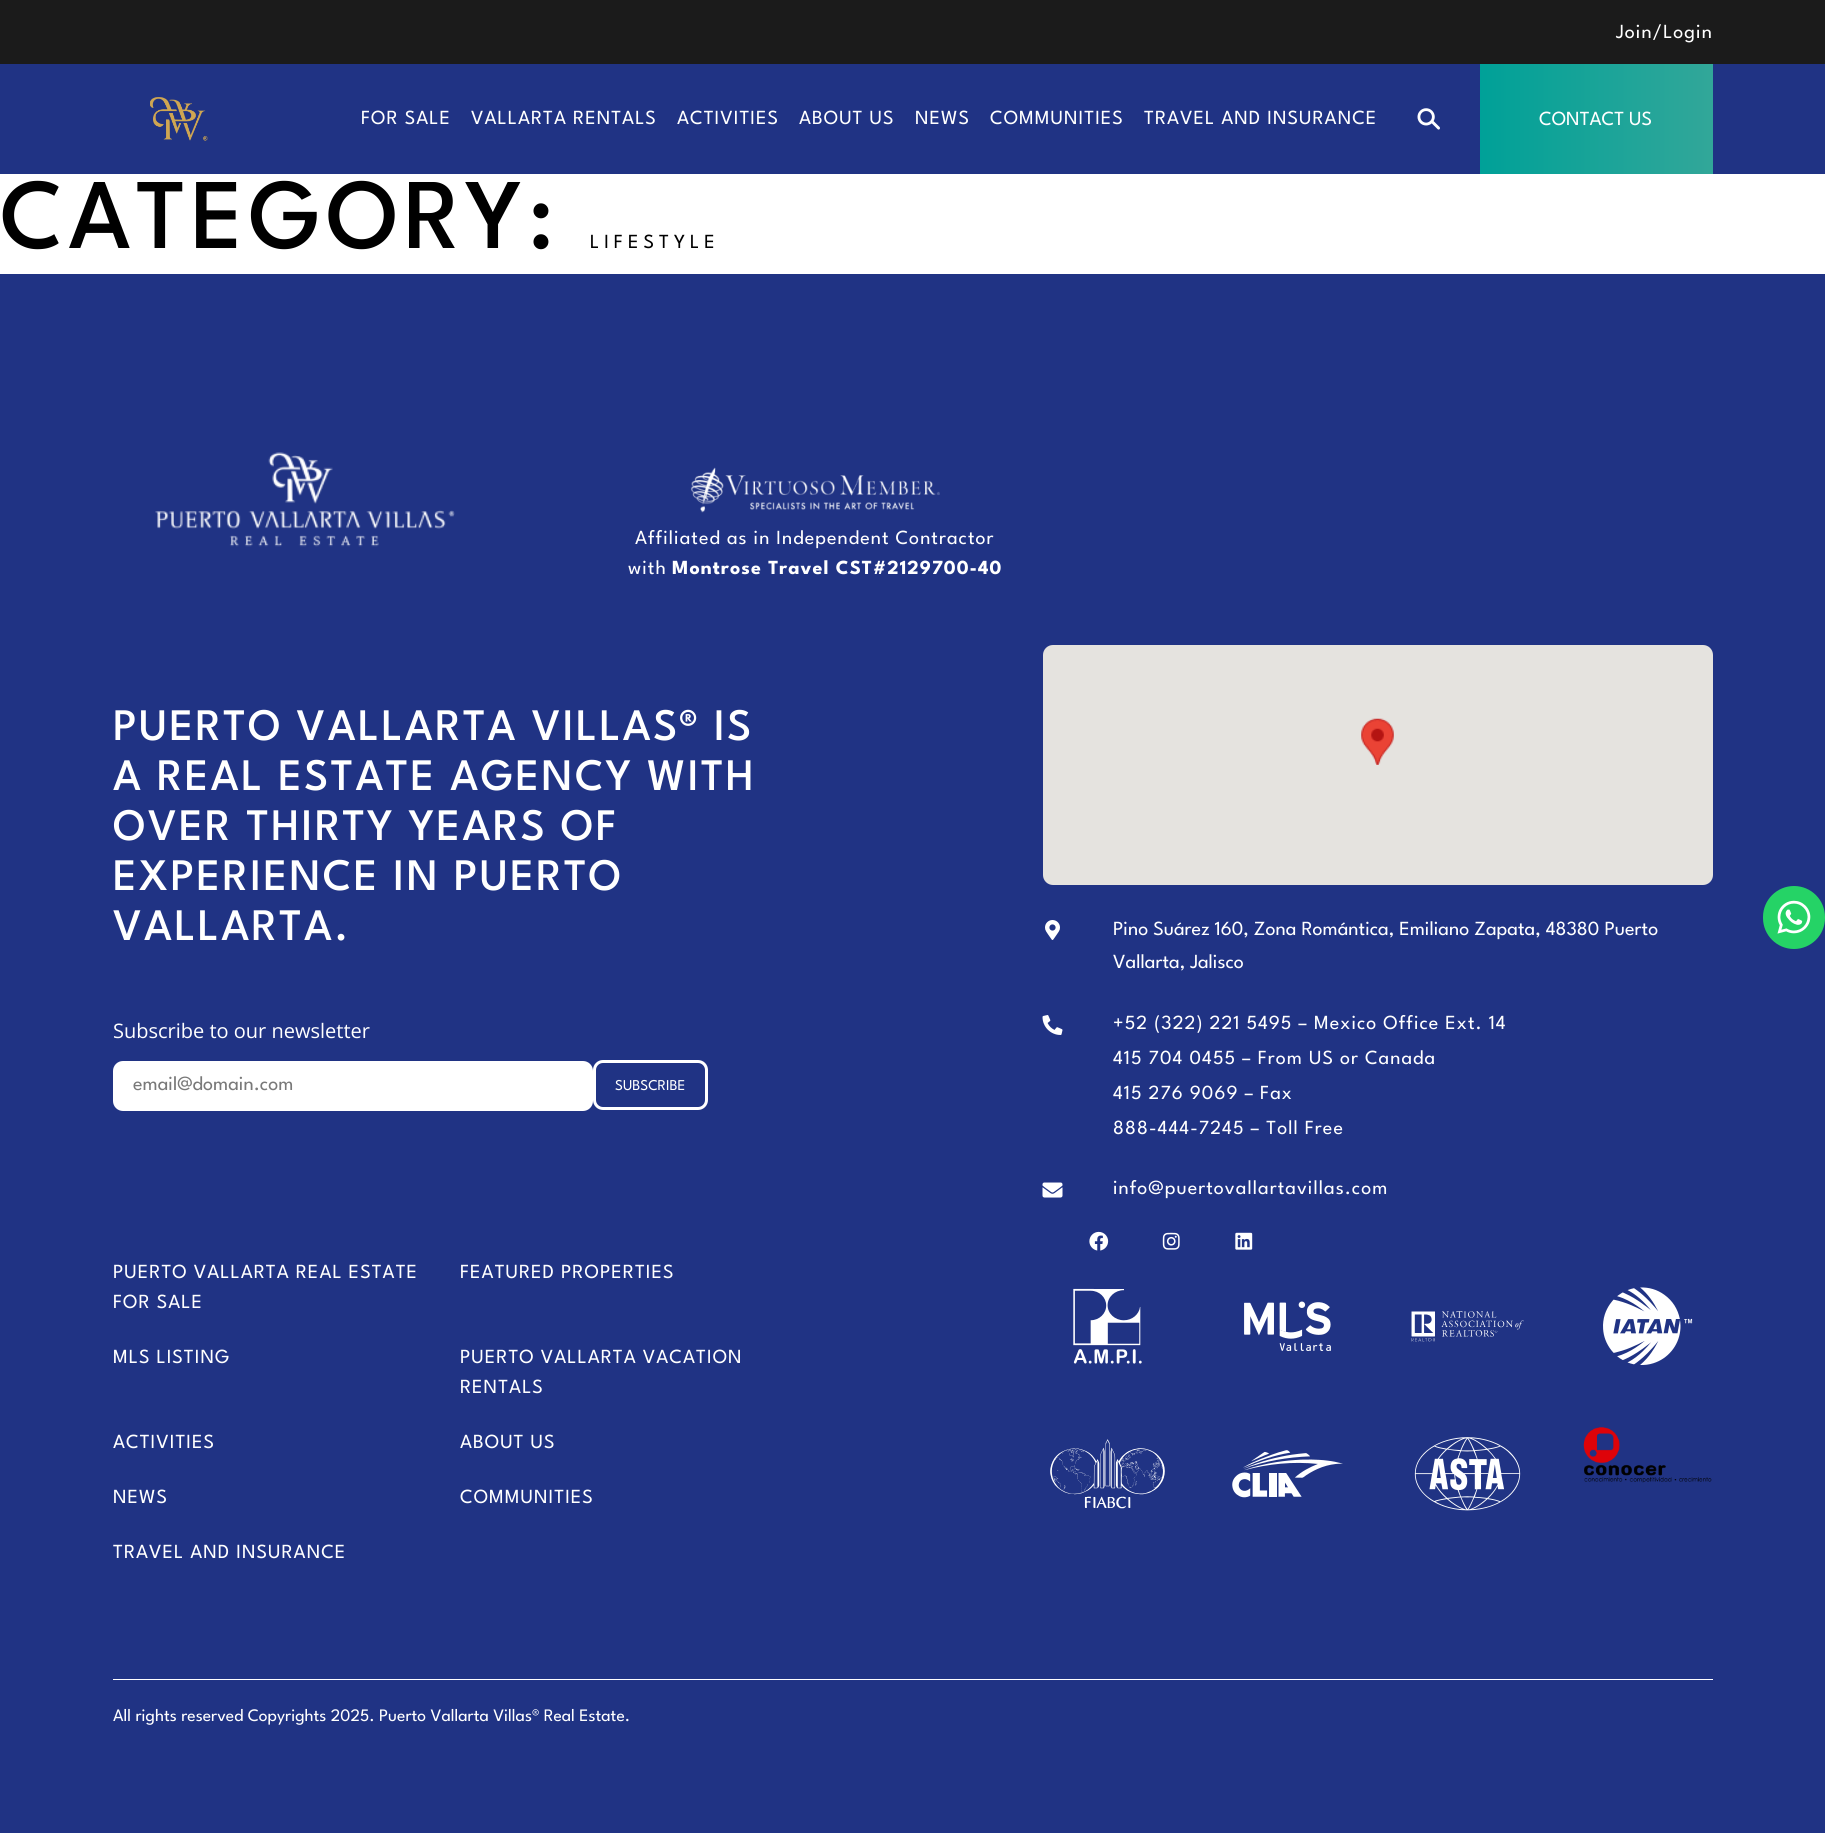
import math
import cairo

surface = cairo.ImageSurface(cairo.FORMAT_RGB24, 1825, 1833)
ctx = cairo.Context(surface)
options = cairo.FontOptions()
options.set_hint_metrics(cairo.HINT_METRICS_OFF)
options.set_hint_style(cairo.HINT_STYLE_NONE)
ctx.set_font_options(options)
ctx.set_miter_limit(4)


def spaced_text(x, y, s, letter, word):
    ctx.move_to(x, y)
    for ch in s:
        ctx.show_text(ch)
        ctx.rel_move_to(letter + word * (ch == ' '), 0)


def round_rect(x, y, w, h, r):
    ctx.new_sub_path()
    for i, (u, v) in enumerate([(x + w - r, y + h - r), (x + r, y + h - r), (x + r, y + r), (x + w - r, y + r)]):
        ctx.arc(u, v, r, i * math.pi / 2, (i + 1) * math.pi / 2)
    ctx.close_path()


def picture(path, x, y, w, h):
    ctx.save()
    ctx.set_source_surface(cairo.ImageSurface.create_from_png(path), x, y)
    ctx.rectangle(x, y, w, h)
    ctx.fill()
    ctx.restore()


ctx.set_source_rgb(1, 1, 1)
ctx.paint()
ctx.set_source_rgb(0.106, 0.106, 0.106)
ctx.rectangle(0, 0, 1825, 64)
ctx.fill()
ctx.select_font_face("League Spartan")
ctx.set_font_size(20)
ctx.set_source_rgb(1, 1, 1)
spaced_text(1616, 38, "Join/Login", 1, 0)
ctx.set_source_rgb(0.125, 0.2, 0.518)
ctx.rectangle(0, 64, 1825, 110)
ctx.fill()
picture("img1.png", 150, 97, 58, 44)
ctx.set_source_rgb(1, 1, 1)
spaced_text(361, 124, "FOR SALE", 1, 0)
spaced_text(471, 124, "VALLARTA RENTALS", 1, 0)
spaced_text(677, 124, "ACTIVITIES", 1, 0)
spaced_text(799, 124, "ABOUT US", 1, 0)
spaced_text(915, 124, "NEWS", 1, 0)
spaced_text(990, 124, "COMMUNITIES", 1, 0)
spaced_text(1144, 124, "TRAVEL AND INSURANCE", 1, 0)
picture("img2.png", 1417, 108, 23, 22)
gradient = cairo.LinearGradient(1480, 284, 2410, 284)
gradient.add_color_stop_rgba(0, 0, 0.631, 0.596, 1)
gradient.add_color_stop_rgba(1, 0.78, 0.722, 0.612, 1)
ctx.set_source(gradient)
ctx.rectangle(1480, 64, 233, 110)
ctx.fill()
ctx.set_source_rgb(1, 1, 1)
ctx.move_to(1539, 125)
ctx.show_text("CONTACT US")
ctx.select_font_face("League Spartan Medium")
ctx.set_font_size(100)
ctx.set_source_rgb(0, 0, 0)
spaced_text(0, 248, "CATEGORY:", 5, 0)
ctx.select_font_face("League Spartan")
ctx.set_font_size(20)
spaced_text(590, 248, "LIFESTYLE", 5, 0)
ctx.set_source_rgb(0.125, 0.2, 0.518)
ctx.rectangle(0, 274, 1825, 1559)
ctx.fill()
picture("img3.png", 155, 452, 300, 95)
picture("img4.png", 690, 467, 250, 46)
ctx.set_source_rgb(1, 1, 1)
spaced_text(635, 544, "Affiliated as in Independent Contractor", 1, 0)
spaced_text(628, 574, "with", 1, 0)
ctx.select_font_face("League Spartan", cairo.FONT_SLANT_NORMAL, cairo.FONT_WEIGHT_BOLD)
spaced_text(672, 574, "Montrose Travel CST#2129700-40", 1, 0)
ctx.rectangle(113, 1679, 1600, 1)
ctx.fill()
ctx.select_font_face("League Spartan Medium")
ctx.set_font_size(45)
spaced_text(113, 740, "PUERTO VALLARTA VILLAS", 2.25, 0)
ctx.select_font_face("League Spartan", cairo.FONT_SLANT_NORMAL, cairo.FONT_WEIGHT_BOLD)
spaced_text(679, 740, "®", 2.25, 0)
ctx.select_font_face("League Spartan Medium")
spaced_text(714, 740, "IS", 2.25, 0)
spaced_text(113, 790, "A REAL ESTATE AGENCY WITH", 2.25, 0)
spaced_text(113, 840, "OVER THIRTY YEARS OF", 2.25, 0)
spaced_text(113, 890, "EXPERIENCE IN PUERTO", 2.25, 0)
spaced_text(113, 940, "VALLARTA.", 2.25, 0)
ctx.select_font_face("Open Sans")
ctx.set_font_size(20)
ctx.move_to(113, 1038)
ctx.show_text("Subscribe to our newsletter")
round_rect(113, 1061, 480, 50, 10)
ctx.fill()
ctx.select_font_face("League Spartan")
ctx.set_source_rgb(0.475, 0.475, 0.475)
ctx.move_to(133, 1090)
ctx.show_text("email@domain.com")
round_rect(594.5, 1061.5, 112, 47, 8.5)
ctx.set_source_rgb(1, 1, 1)
ctx.set_line_width(3)
ctx.stroke()
ctx.set_font_size(15)
ctx.move_to(615, 1090)
ctx.show_text("SUBSCRIBE")
ctx.set_font_size(20)
spaced_text(113, 1278, "PUERTO VALLARTA REAL ESTATE", 1, 0)
spaced_text(113, 1308, "FOR SALE", 1, 0)
spaced_text(460, 1278, "FEATURED PROPERTIES", 1, 0)
spaced_text(113, 1363, "MLS LISTING", 1, 0)
spaced_text(460, 1363, "PUERTO VALLARTA VACATION", 1, 0)
spaced_text(460, 1393, "RENTALS", 1, 0)
spaced_text(113, 1448, "ACTIVITIES", 1, 0)
spaced_text(460, 1448, "ABOUT US", 1, 0)
spaced_text(113, 1503, "NEWS", 1, 0)
spaced_text(460, 1503, "COMMUNITIES", 1, 0)
spaced_text(113, 1558, "TRAVEL AND INSURANCE", 1, 0)
ctx.set_source_rgb(0.898, 0.89, 0.875)
round_rect(1043, 645, 670, 240, 10)
ctx.fill()
picture("img5.png", 1361, 718, 33, 47)
picture("img6.png", 1045, 920, 15, 20)
ctx.set_source_rgb(1, 1, 1)
ctx.move_to(1113, 935)
ctx.show_text("Pino Suárez 160, Zona Romántica, Emiliano Zapata, 48380 Puerto")
ctx.move_to(1113, 968)
ctx.show_text("Vallarta, Jalisco")
picture("img7.png", 1042, 1015, 21, 20)
spaced_text(1113, 1029, "+52 (322) 221 5495 – Mexico Office Ext. 14", 1, 0)
spaced_text(1113, 1064, "415 704 0455 – From US or Canada", 1, 0)
spaced_text(1113, 1099, "415 276 9069 – Fax", 1, 0)
spaced_text(1113, 1134, "888-444-7245 – Toll Free", 1, 0)
picture("img8.png", 1042, 1182, 21, 16)
spaced_text(1113, 1194, "info@puertovallartavillas.com", 1, 0)
picture("img9.png", 1089, 1231, 20, 20)
picture("img10.png", 1162, 1232, 18, 18)
picture("img11.png", 1235, 1232, 18, 18)
picture("img12.png", 1073, 1288, 69, 76)
picture("img13.png", 1244, 1301, 87, 50)
picture("img14.png", 1411, 1311, 113, 31)
picture("img15.png", 1603, 1287, 90, 78)
picture("img16.png", 1050, 1439, 115, 70)
picture("img17.png", 1232, 1450, 111, 48)
picture("img18.png", 1414, 1437, 107, 74)
picture("img19.png", 1583, 1427, 129, 56)
ctx.set_font_size(17.5)
ctx.move_to(113, 1721)
ctx.show_text("All rights reserved Copyrights 2025. Puerto Vallarta Villas® Real Estate.")
ctx.set_source_rgb(0.145, 0.827, 0.4)
round_rect(1763, 886, 62, 63, 31)
ctx.fill()
picture("img20.png", 1777, 900, 34, 34)
surface.write_to_png("page.png")
